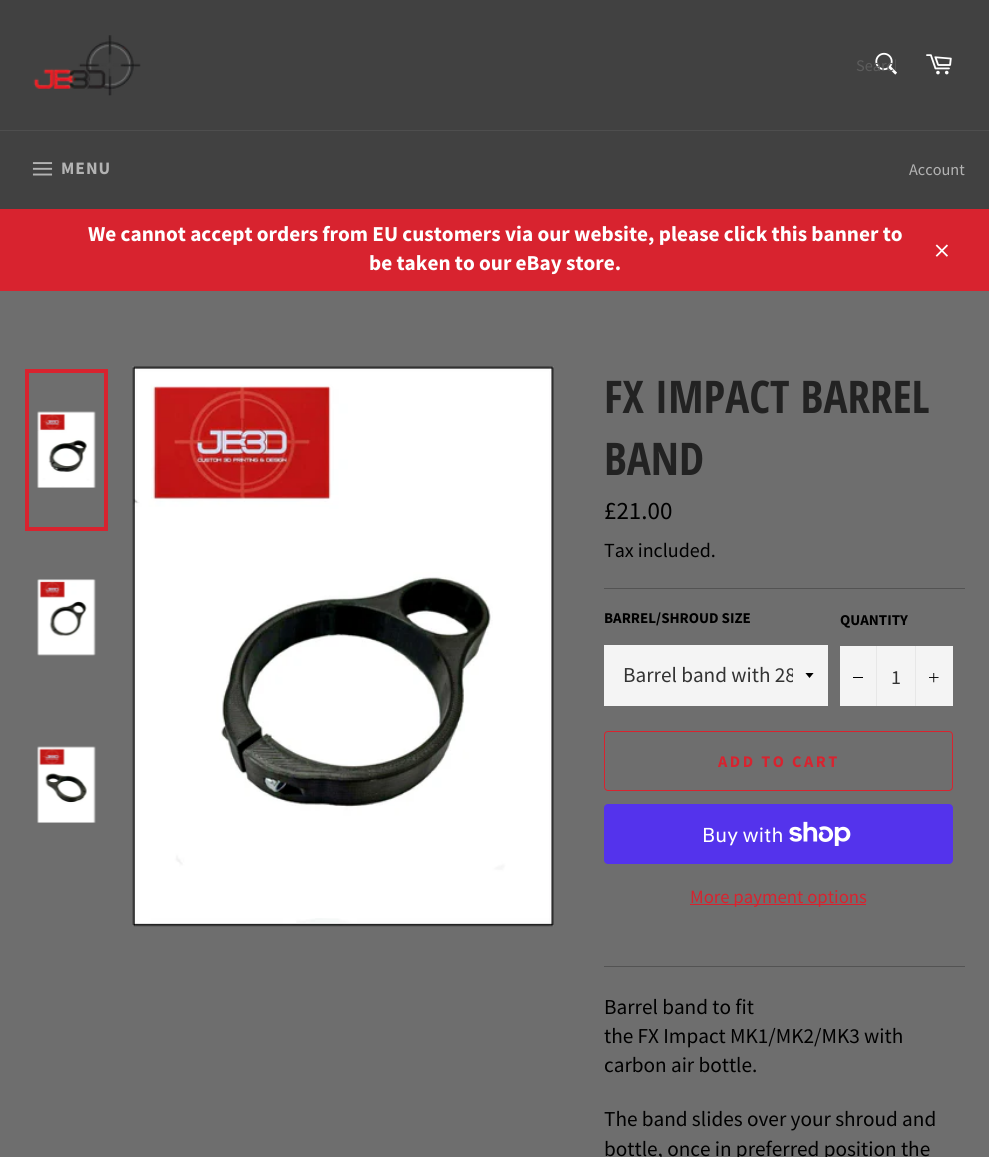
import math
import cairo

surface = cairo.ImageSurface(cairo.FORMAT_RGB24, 989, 1157)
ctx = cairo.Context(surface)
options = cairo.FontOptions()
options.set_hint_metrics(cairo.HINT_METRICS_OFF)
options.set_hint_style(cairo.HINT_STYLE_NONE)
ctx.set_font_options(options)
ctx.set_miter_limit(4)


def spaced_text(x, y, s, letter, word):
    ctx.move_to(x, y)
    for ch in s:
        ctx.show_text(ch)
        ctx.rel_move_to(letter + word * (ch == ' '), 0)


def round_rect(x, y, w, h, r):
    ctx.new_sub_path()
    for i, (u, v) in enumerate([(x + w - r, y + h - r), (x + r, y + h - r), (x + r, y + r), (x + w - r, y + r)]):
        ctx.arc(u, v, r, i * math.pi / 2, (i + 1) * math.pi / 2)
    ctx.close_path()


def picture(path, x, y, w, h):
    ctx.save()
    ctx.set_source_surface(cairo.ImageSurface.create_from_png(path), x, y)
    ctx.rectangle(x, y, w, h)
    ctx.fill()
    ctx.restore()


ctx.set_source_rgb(0.255, 0.255, 0.255)
ctx.paint()
picture("img1.png", 33, 35, 108, 61)
picture("img2.png", 875, 52, 22, 23)
ctx.save()
ctx.rectangle(856, 55, 40, 21)
ctx.clip()
ctx.select_font_face("Source Sans Pro")
ctx.set_font_size(16.25)
ctx.set_source_rgb(0.361, 0.361, 0.361)
ctx.move_to(856, 71)
ctx.show_text("Search")
ctx.restore()
picture("img3.png", 926, 54, 26, 21)
ctx.set_source_rgb(0.306, 0.306, 0.306)
ctx.rectangle(0, 130, 989, 1)
ctx.fill()
picture("img4.png", 32, 162, 21, 14)
ctx.select_font_face("Source Sans Pro", cairo.FONT_SLANT_NORMAL, cairo.FONT_WEIGHT_BOLD)
ctx.set_font_size(17.5)
ctx.set_source_rgb(0.702, 0.702, 0.702)
spaced_text(61, 174, "MENU", 1, 0)
ctx.select_font_face("Source Sans Pro")
ctx.set_font_size(16.25)
ctx.move_to(909, 175)
ctx.show_text("Account")
ctx.set_source_rgb(0.847, 0.137, 0.184)
ctx.rectangle(0, 209, 989, 82)
ctx.fill()
ctx.select_font_face("Source Sans Pro", cairo.FONT_SLANT_NORMAL, cairo.FONT_WEIGHT_BOLD)
ctx.set_font_size(21.25)
ctx.set_source_rgb(1, 1, 1)
ctx.move_to(88, 241)
ctx.show_text("We cannot accept orders from EU customers via our website, please click this banner to")
ctx.move_to(369, 270)
ctx.show_text("be taken to our eBay store.")
picture("img5.png", 935, 244, 13, 13)
ctx.set_source_rgb(0.431, 0.431, 0.431)
ctx.rectangle(0, 291, 989, 866)
ctx.fill()
picture("img6.png", 37, 411, 59, 77)
ctx.rectangle(27, 371, 79, 158)
ctx.set_source_rgb(0.847, 0.137, 0.184)
ctx.set_line_width(4)
ctx.stroke()
picture("img7.png", 37, 579, 59, 77)
picture("img8.png", 37, 746, 59, 77)
picture("img9.png", 132, 366, 422, 561)
ctx.select_font_face("Open Sans Condensed", cairo.FONT_SLANT_NORMAL, cairo.FONT_WEIGHT_BOLD)
ctx.set_font_size(45)
ctx.set_source_rgb(0.133, 0.133, 0.133)
ctx.move_to(604, 413)
ctx.show_text("FX IMPACT BARREL")
ctx.move_to(604, 475)
ctx.show_text("BAND")
ctx.select_font_face("Source Sans Pro")
ctx.set_font_size(25)
ctx.set_source_rgb(0, 0, 0)
ctx.move_to(604, 519)
ctx.show_text("£21.00")
ctx.set_font_size(20)
ctx.move_to(604, 557)
ctx.show_text("Tax included.")
ctx.set_source_rgb(0.325, 0.325, 0.325)
ctx.rectangle(604, 588, 361, 1)
ctx.fill()
ctx.select_font_face("Source Sans Pro", cairo.FONT_SLANT_NORMAL, cairo.FONT_WEIGHT_BOLD)
ctx.set_font_size(15)
ctx.set_source_rgb(0, 0, 0)
ctx.move_to(604, 623)
ctx.show_text("BARREL/SHROUD SIZE")
ctx.set_source_rgb(0.957, 0.957, 0.957)
ctx.rectangle(604, 645, 224, 61)
ctx.fill()
ctx.save()
ctx.rectangle(805, 673, 10, 6)
ctx.clip()
ctx.set_source_rgb(0, 0, 0)
ctx.new_path()
ctx.move_to(805, 672.5)
ctx.line_to(809.5, 678)
ctx.line_to(814, 672.5)
ctx.close_path()
ctx.fill()
ctx.restore()
ctx.save()
ctx.rectangle(623, 661, 170, 29)
ctx.clip()
ctx.select_font_face("Source Sans Pro")
ctx.set_font_size(21.25)
ctx.set_source_rgb(0.2, 0.2, 0.2)
ctx.move_to(623, 682)
ctx.show_text("Barrel band with 28")
ctx.restore()
ctx.set_source_rgb(0, 0, 0)
ctx.move_to(840, 625)
ctx.show_text("QUANTITY")
ctx.set_source_rgb(0.957, 0.957, 0.957)
ctx.rectangle(840, 646, 113, 60)
ctx.fill()
ctx.set_source_rgb(0.906, 0.906, 0.906)
ctx.rectangle(876, 646, 1, 60)
ctx.fill()
ctx.set_source_rgb(0, 0, 0)
ctx.rectangle(853, 677, 10, 1)
ctx.fill()
ctx.select_font_face("Source Sans Pro")
ctx.set_font_size(20)
ctx.set_source_rgb(0.2, 0.2, 0.2)
ctx.move_to(891, 684)
ctx.show_text("1")
ctx.set_source_rgb(0.906, 0.906, 0.906)
ctx.rectangle(915, 646, 1, 60)
ctx.fill()
picture("img10.png", 929, 673, 10, 10)
round_rect(604.5, 731.5, 348, 59, 3.5)
ctx.set_source_rgb(0.847, 0.137, 0.184)
ctx.set_line_width(1)
ctx.stroke()
ctx.select_font_face("Source Sans Pro", cairo.FONT_SLANT_NORMAL, cairo.FONT_WEIGHT_BOLD)
ctx.set_font_size(16.25)
spaced_text(718, 767, "ADD TO CART", 2.5, 0)
ctx.set_source_rgb(0.329, 0.2, 0.922)
round_rect(604, 804, 349, 60, 4)
ctx.fill()
ctx.select_font_face("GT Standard")
ctx.set_font_size(20)
ctx.set_source_rgb(1, 1, 1)
ctx.move_to(702, 842)
ctx.show_text("Buy with")
picture("img11.png", 789, 821, 62, 25)
ctx.set_source_rgb(0.847, 0.137, 0.184)
ctx.rectangle(690, 904, 176, 1)
ctx.fill()
ctx.select_font_face("Source Sans Pro")
ctx.set_font_size(18.75)
ctx.move_to(690, 903)
ctx.show_text("More payment options")
ctx.set_source_rgb(0.325, 0.325, 0.325)
ctx.rectangle(604, 966, 361, 1)
ctx.fill()
ctx.set_font_size(21.25)
ctx.set_source_rgb(0, 0, 0)
ctx.move_to(604, 1014)
ctx.show_text("Barrel band to fit")
ctx.move_to(604, 1043)
ctx.show_text("the FX Impact MK1/MK2/MK3 with")
ctx.move_to(604, 1072)
ctx.show_text("carbon air bottle.")
ctx.move_to(604, 1126)
ctx.show_text("The band slides over your shroud and")
ctx.move_to(604, 1156)
ctx.show_text("bottle, once in preferred position the")
surface.write_to_png("page.png")
